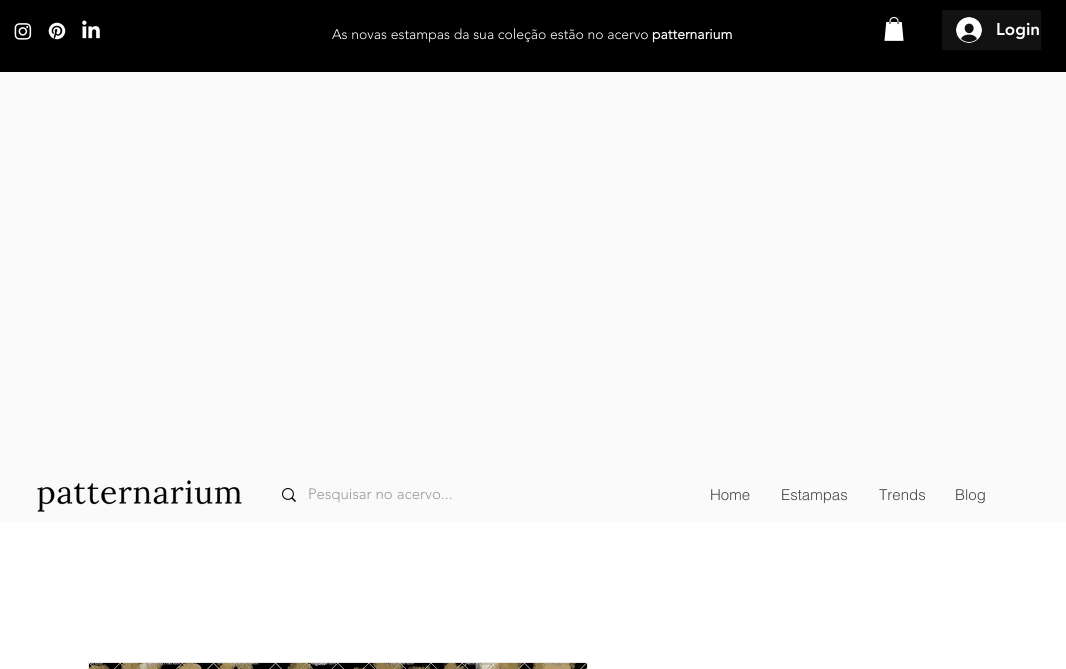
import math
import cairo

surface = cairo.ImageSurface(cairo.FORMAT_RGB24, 1066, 669)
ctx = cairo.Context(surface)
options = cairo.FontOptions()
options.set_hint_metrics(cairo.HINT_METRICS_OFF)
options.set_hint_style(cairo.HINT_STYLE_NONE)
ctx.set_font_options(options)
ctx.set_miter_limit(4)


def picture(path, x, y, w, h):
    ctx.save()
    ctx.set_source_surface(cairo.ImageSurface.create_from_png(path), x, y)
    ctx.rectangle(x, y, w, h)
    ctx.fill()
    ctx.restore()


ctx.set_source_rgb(1, 1, 1)
ctx.paint()
ctx.set_source_rgb(0, 0, 0)
ctx.rectangle(0, 0, 1066, 72)
ctx.fill()
picture("img1.png", 14, 23, 18, 17)
picture("img2.png", 48, 22, 18, 18)
picture("img3.png", 82, 20, 18, 19)
ctx.select_font_face("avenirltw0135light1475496 Light")
ctx.set_font_size(14)
ctx.set_source_rgb(1, 1, 1)
ctx.move_to(332, 39)
ctx.show_text("As novas estampas da sua coleção estão no acervo")
ctx.select_font_face("avenirltw0135light1475496", cairo.FONT_SLANT_NORMAL, cairo.FONT_WEIGHT_BOLD)
ctx.move_to(652, 39)
ctx.show_text("patternarium")
picture("img4.png", 884, 17, 20, 24)
ctx.set_source_rgb(0.071, 0.071, 0.071)
ctx.rectangle(942, 10, 99, 40)
ctx.fill()
picture("img5.png", 956, 17, 26, 26)
ctx.select_font_face("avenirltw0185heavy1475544 Black")
ctx.set_font_size(17)
ctx.set_source_rgb(1, 1, 1)
ctx.move_to(996, 35)
ctx.show_text("Login")
ctx.set_source_rgb(0.98, 0.98, 0.98)
ctx.rectangle(0, 72, 1066, 450)
ctx.fill()
picture("img6.png", 37, 480, 205, 32)
picture("img7.png", 282, 488, 14, 14)
ctx.select_font_face("avenirltw0135light1475496 Light")
ctx.set_font_size(15)
ctx.set_source_rgb(0.6, 0.6, 0.6)
ctx.move_to(308, 499)
ctx.show_text("Pesquisar no acervo...")
ctx.select_font_face("helvetica Light")
ctx.set_source_rgb(0.267, 0.267, 0.267)
ctx.move_to(710, 500)
ctx.show_text("Home")
ctx.move_to(781, 500)
ctx.show_text("Estampas")
ctx.move_to(879, 500)
ctx.show_text("Trends")
ctx.move_to(955, 500)
ctx.show_text("Blog")
ctx.rectangle(88.5, 662.5, 499, 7)
ctx.set_source_rgb(0.91, 0.902, 0.902)
ctx.set_line_width(1)
ctx.stroke()
picture("img8.png", 89, 663, 498, 6)
surface.write_to_png("page.png")
